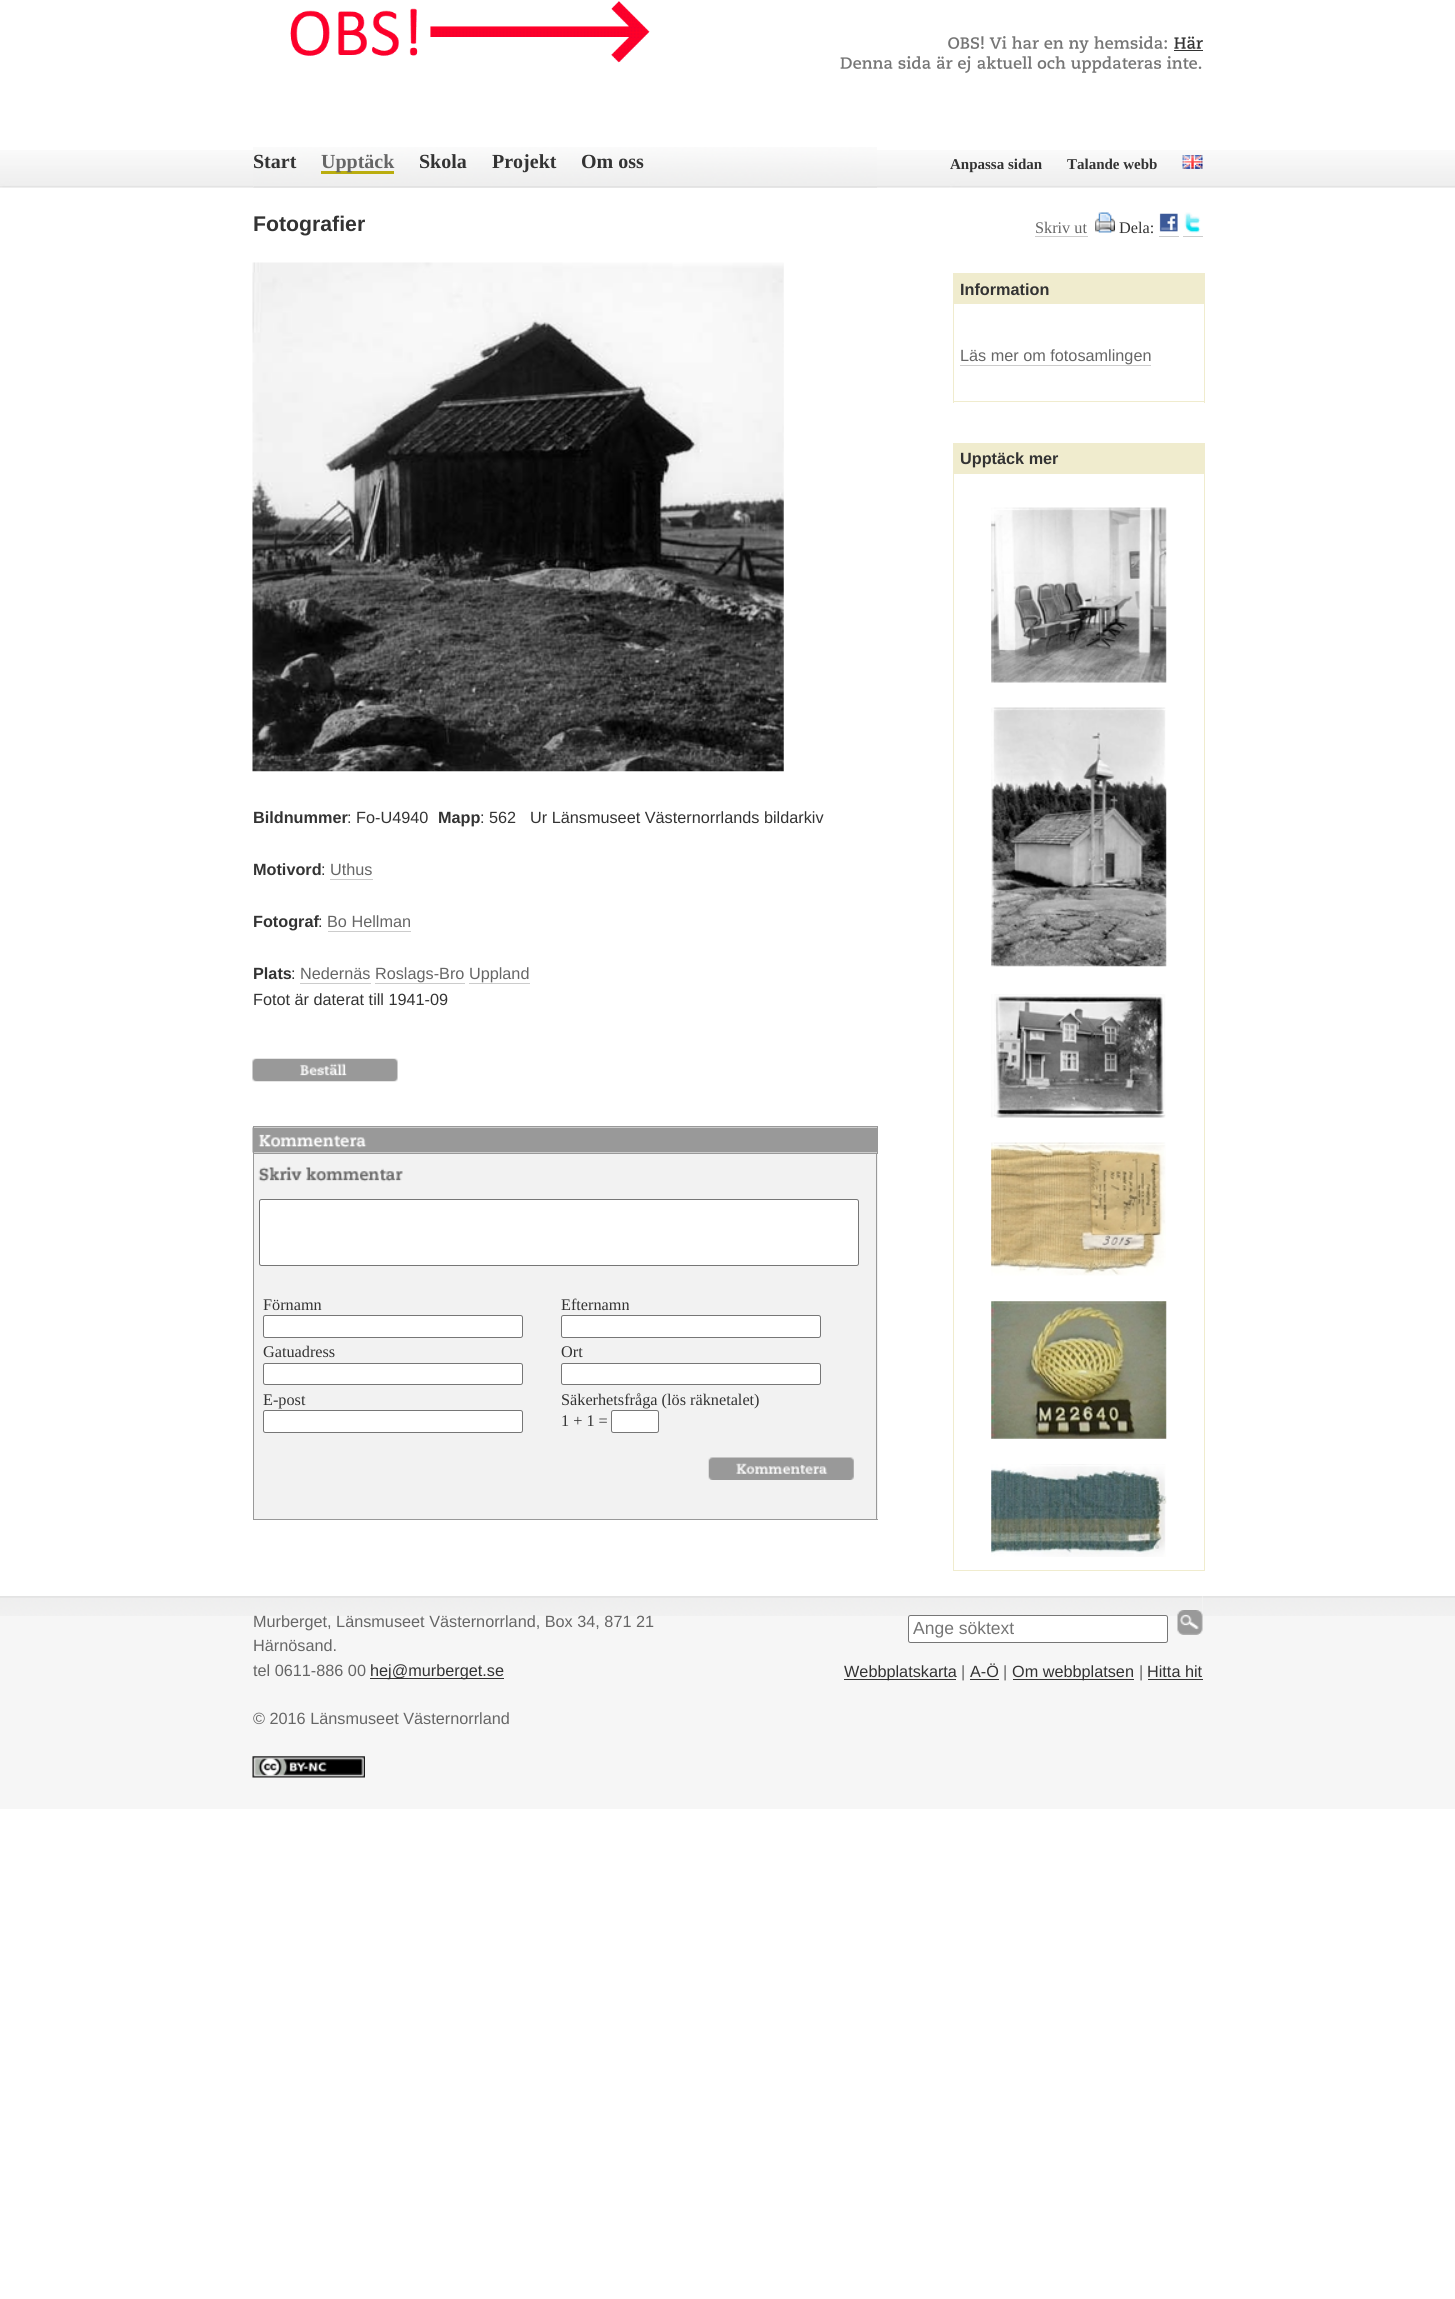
import math
import cairo

surface = cairo.ImageSurface(cairo.FORMAT_RGB24, 1455, 2299)
ctx = cairo.Context(surface)
options = cairo.FontOptions()
options.set_hint_metrics(cairo.HINT_METRICS_OFF)
options.set_hint_style(cairo.HINT_STYLE_NONE)
ctx.set_font_options(options)
ctx.set_miter_limit(4)


def round_rect(x, y, w, h, r):
    ctx.new_sub_path()
    for i, (u, v) in enumerate([(x + w - r, y + h - r), (x + r, y + h - r), (x + r, y + r), (x + w - r, y + r)]):
        ctx.arc(u, v, r, i * math.pi / 2, (i + 1) * math.pi / 2)
    ctx.close_path()


def picture(path, x, y, w, h):
    ctx.save()
    ctx.set_source_surface(cairo.ImageSurface.create_from_png(path), x, y)
    ctx.rectangle(x, y, w, h)
    ctx.fill()
    ctx.restore()


ctx.set_source_rgb(1, 1, 1)
ctx.paint()
picture("img1.png", 0, 150, 1455, 38)
picture("img2.png", 290, 1, 360, 62)
picture("img3.png", 948, 36, 219, 17)
picture("img4.png", 1174, 36, 29, 13)
ctx.set_source_rgb(0.2, 0.2, 0.2)
ctx.rectangle(1174, 50, 29, 1)
ctx.fill()
picture("img5.png", 840, 56, 362, 17)
picture("img6.png", 253, 147, 624, 41)
ctx.select_font_face("Liberation Serif", cairo.FONT_SLANT_NORMAL, cairo.FONT_WEIGHT_BOLD)
ctx.set_font_size(20)
ctx.move_to(253, 168)
ctx.show_text("Start")
ctx.set_source_rgb(0.729, 0.678, 0.055)
ctx.rectangle(321, 171, 73, 3)
ctx.fill()
ctx.set_source_rgb(0.4, 0.4, 0.4)
ctx.move_to(321, 168)
ctx.show_text("Upptäck")
ctx.set_source_rgb(0.2, 0.2, 0.2)
ctx.move_to(419, 168)
ctx.show_text("Skola")
ctx.move_to(492, 168)
ctx.show_text("Projekt")
ctx.move_to(581, 168)
ctx.show_text("Om oss")
ctx.set_font_size(15)
ctx.move_to(950, 169)
ctx.show_text("Anpassa sidan")
ctx.move_to(1067, 169)
ctx.show_text("Talande webb")
picture("img7.png", 1182, 155, 21, 14)
ctx.select_font_face("Liberation Sans", cairo.FONT_SLANT_NORMAL, cairo.FONT_WEIGHT_BOLD)
ctx.set_font_size(21.25)
ctx.move_to(253, 231)
ctx.show_text("Fotografier")
picture("img8.png", 252, 262, 532, 510)
ctx.set_font_size(16.25)
ctx.move_to(253, 823)
ctx.show_text("Bildnummer")
ctx.select_font_face("Liberation Sans")
ctx.move_to(347, 823)
ctx.show_text(": Fo-U4940")
ctx.select_font_face("Liberation Sans", cairo.FONT_SLANT_NORMAL, cairo.FONT_WEIGHT_BOLD)
ctx.move_to(438, 823)
ctx.show_text("Mapp")
ctx.select_font_face("Liberation Sans")
ctx.move_to(480, 823)
ctx.show_text(": 562")
ctx.move_to(530, 823)
ctx.show_text("Ur Länsmuseet Västernorrlands bildarkiv")
ctx.select_font_face("Liberation Sans", cairo.FONT_SLANT_NORMAL, cairo.FONT_WEIGHT_BOLD)
ctx.move_to(253, 875)
ctx.show_text("Motivord")
ctx.select_font_face("Liberation Sans")
ctx.move_to(321, 875)
ctx.show_text(":")
ctx.set_source_rgb(0.4, 0.4, 0.4)
ctx.move_to(330, 875)
ctx.show_text("Uthus")
ctx.set_source_rgb(0.8, 0.8, 0.8)
ctx.rectangle(330, 879, 43, 1)
ctx.fill()
ctx.select_font_face("Liberation Sans", cairo.FONT_SLANT_NORMAL, cairo.FONT_WEIGHT_BOLD)
ctx.set_source_rgb(0.2, 0.2, 0.2)
ctx.move_to(253, 927)
ctx.show_text("Fotograf")
ctx.select_font_face("Liberation Sans")
ctx.move_to(318, 927)
ctx.show_text(":")
ctx.set_source_rgb(0.4, 0.4, 0.4)
ctx.move_to(327, 927)
ctx.show_text("Bo Hellman")
ctx.set_source_rgb(0.8, 0.8, 0.8)
ctx.rectangle(328, 931, 83, 1)
ctx.fill()
ctx.select_font_face("Liberation Sans", cairo.FONT_SLANT_NORMAL, cairo.FONT_WEIGHT_BOLD)
ctx.set_source_rgb(0.2, 0.2, 0.2)
ctx.move_to(253, 979)
ctx.show_text("Plats")
ctx.select_font_face("Liberation Sans")
ctx.move_to(291, 979)
ctx.show_text(":")
ctx.set_source_rgb(0.4, 0.4, 0.4)
ctx.move_to(300, 979)
ctx.show_text("Nedernäs Roslags-Bro Uppland")
ctx.set_source_rgb(0.8, 0.8, 0.8)
ctx.rectangle(300, 983, 71, 1)
ctx.fill()
ctx.rectangle(375, 983, 90, 1)
ctx.fill()
ctx.rectangle(469, 983, 61, 1)
ctx.fill()
ctx.set_source_rgb(0.2, 0.2, 0.2)
ctx.move_to(253, 1005)
ctx.show_text("Fotot är daterat till 1941-09")
picture("img9.png", 252, 1058, 146, 24)
picture("img10.png", 252, 1127, 625, 26)
ctx.rectangle(253.5, 1126.5, 624, 27)
ctx.set_source_rgb(0.6, 0.6, 0.6)
ctx.set_line_width(1)
ctx.stroke()
ctx.set_source_rgb(0.949, 0.949, 0.949)
ctx.rectangle(254, 1154, 624, 365)
ctx.fill()
ctx.set_source_rgb(0.6, 0.6, 0.6)
ctx.rectangle(876, 1154, 1, 366)
ctx.fill()
ctx.rectangle(253, 1519, 625, 1)
ctx.fill()
ctx.rectangle(253, 1154, 1, 366)
ctx.fill()
picture("img11.png", 258, 1166, 145, 16)
ctx.set_source_rgb(1, 1, 1)
round_rect(259.5, 1199.5, 599, 66, 2)
ctx.fill_preserve()
ctx.set_source_rgb(0.463, 0.463, 0.463)
ctx.stroke()
ctx.select_font_face("Liberation Serif")
ctx.set_source_rgb(0.2, 0.2, 0.2)
ctx.move_to(263, 1310)
ctx.show_text("Förnamn")
ctx.set_source_rgb(1, 1, 1)
round_rect(263.5, 1315.5, 259, 22, 2)
ctx.fill_preserve()
ctx.set_source_rgb(0.463, 0.463, 0.463)
ctx.stroke()
ctx.set_source_rgb(0.2, 0.2, 0.2)
ctx.move_to(561, 1310)
ctx.show_text("Efternamn")
ctx.set_source_rgb(1, 1, 1)
round_rect(561.5, 1315.5, 259, 22, 2)
ctx.fill_preserve()
ctx.set_source_rgb(0.463, 0.463, 0.463)
ctx.stroke()
ctx.set_source_rgb(0.2, 0.2, 0.2)
ctx.move_to(263, 1357)
ctx.show_text("Gatuadress")
ctx.set_source_rgb(1, 1, 1)
round_rect(263.5, 1363.5, 259, 21, 2)
ctx.fill_preserve()
ctx.set_source_rgb(0.463, 0.463, 0.463)
ctx.stroke()
ctx.set_source_rgb(0.2, 0.2, 0.2)
ctx.move_to(561, 1357)
ctx.show_text("Ort")
ctx.set_source_rgb(1, 1, 1)
round_rect(561.5, 1363.5, 259, 21, 2)
ctx.fill_preserve()
ctx.set_source_rgb(0.463, 0.463, 0.463)
ctx.stroke()
ctx.set_source_rgb(0.2, 0.2, 0.2)
ctx.move_to(263, 1405)
ctx.show_text("E-post")
ctx.set_source_rgb(1, 1, 1)
round_rect(263.5, 1410.5, 259, 22, 2)
ctx.fill_preserve()
ctx.set_source_rgb(0.463, 0.463, 0.463)
ctx.stroke()
ctx.set_source_rgb(0.2, 0.2, 0.2)
ctx.move_to(561, 1405)
ctx.show_text("Säkerhetsfråga (lös räknetalet)")
ctx.move_to(561, 1426)
ctx.show_text("1 + 1 =")
ctx.set_source_rgb(1, 1, 1)
round_rect(611.5, 1410.5, 47, 22, 2)
ctx.fill_preserve()
ctx.set_source_rgb(0.463, 0.463, 0.463)
ctx.stroke()
picture("img12.png", 708, 1457, 146, 23)
ctx.set_source_rgb(0.4, 0.4, 0.4)
ctx.move_to(1035, 233)
ctx.show_text("Skriv ut")
ctx.set_source_rgb(0.8, 0.8, 0.8)
ctx.rectangle(1035, 236, 53, 1)
ctx.fill()
picture("img13.png", 1095, 212, 20, 21)
ctx.set_source_rgb(0.2, 0.2, 0.2)
ctx.move_to(1119, 233)
ctx.show_text("Dela:")
ctx.set_source_rgb(0.8, 0.8, 0.8)
ctx.rectangle(1159, 236, 20, 1)
ctx.fill()
ctx.rectangle(1183, 236, 20, 1)
ctx.fill()
picture("img14.png", 1159, 213, 19, 19)
picture("img15.png", 1184, 212, 17, 21)
ctx.set_source_rgb(0.941, 0.922, 0.808)
ctx.rectangle(954, 273, 250, 31)
ctx.fill()
ctx.rectangle(1204, 273, 1, 130)
ctx.fill()
ctx.rectangle(953, 401, 252, 1)
ctx.fill()
ctx.rectangle(953, 273, 1, 130)
ctx.fill()
ctx.select_font_face("Liberation Sans", cairo.FONT_SLANT_NORMAL, cairo.FONT_WEIGHT_BOLD)
ctx.set_source_rgb(0.2, 0.2, 0.2)
ctx.move_to(960, 295)
ctx.show_text("Information")
ctx.select_font_face("Liberation Sans")
ctx.set_source_rgb(0.4, 0.4, 0.4)
ctx.move_to(960, 361)
ctx.show_text("Läs mer om fotosamlingen")
ctx.set_source_rgb(0.8, 0.8, 0.8)
ctx.rectangle(960, 365, 191, 1)
ctx.fill()
ctx.set_source_rgb(0.941, 0.922, 0.808)
ctx.rectangle(954, 443, 250, 31)
ctx.fill()
ctx.rectangle(1204, 443, 1, 1128)
ctx.fill()
ctx.rectangle(953, 1570, 252, 1)
ctx.fill()
ctx.rectangle(953, 443, 1, 1128)
ctx.fill()
ctx.select_font_face("Liberation Sans", cairo.FONT_SLANT_NORMAL, cairo.FONT_WEIGHT_BOLD)
ctx.set_source_rgb(0.2, 0.2, 0.2)
ctx.move_to(960, 464)
ctx.show_text("Upptäck mer")
picture("img16.png", 991, 507, 176, 176)
picture("img17.png", 991, 707, 176, 260)
picture("img18.png", 991, 994, 175, 124)
picture("img19.png", 991, 1142, 175, 134)
picture("img20.png", 991, 1301, 176, 138)
picture("img21.png", 991, 1464, 176, 93)
ctx.set_source_rgb(0.961, 0.961, 0.961)
ctx.rectangle(0, 1596, 1455, 213)
ctx.fill()
picture("img22.png", 0, 1596, 1455, 20)
ctx.rectangle(253, 1596, 950, 20)
ctx.fill()
picture("img23.png", 253, 1596, 950, 20)
ctx.select_font_face("Liberation Sans")
ctx.set_source_rgb(0.4, 0.4, 0.4)
ctx.move_to(253, 1627)
ctx.show_text("Murberget, Länsmuseet Västernorrland, Box 34, 871 21")
ctx.move_to(253, 1651)
ctx.show_text("Härnösand.")
ctx.move_to(253, 1676)
ctx.show_text("tel 0611-886 00")
ctx.set_source_rgb(0.2, 0.2, 0.2)
ctx.rectangle(370, 1678, 134, 1)
ctx.fill()
ctx.move_to(370, 1676)
ctx.show_text("hej@murberget.se")
ctx.set_source_rgb(0.4, 0.4, 0.4)
ctx.move_to(253, 1724)
ctx.show_text("© 2016 Länsmuseet Västernorrland")
picture("img24.png", 252, 1756, 113, 22)
ctx.set_source_rgb(1, 1, 1)
round_rect(908.5, 1615.5, 259, 27, 2)
ctx.fill_preserve()
ctx.set_source_rgb(0.463, 0.463, 0.463)
ctx.stroke()
ctx.set_font_size(17.5)
ctx.set_source_rgb(0.459, 0.459, 0.459)
ctx.move_to(913, 1634)
ctx.show_text("Ange söktext")
picture("img25.png", 1177, 1610, 26, 25)
ctx.set_source_rgb(0.2, 0.2, 0.2)
ctx.rectangle(844, 1679, 112, 1)
ctx.fill()
ctx.set_font_size(16.25)
ctx.move_to(844, 1677)
ctx.show_text("Webbplatskarta")
ctx.set_source_rgb(0.4, 0.4, 0.4)
ctx.move_to(961, 1677)
ctx.show_text("|")
ctx.set_source_rgb(0.2, 0.2, 0.2)
ctx.move_to(970, 1677)
ctx.show_text("A-Ö")
ctx.rectangle(970, 1679, 29, 1)
ctx.fill()
ctx.set_source_rgb(0.4, 0.4, 0.4)
ctx.move_to(1003, 1677)
ctx.show_text("|")
ctx.set_source_rgb(0.2, 0.2, 0.2)
ctx.rectangle(1013, 1679, 121, 1)
ctx.fill()
ctx.move_to(1012, 1677)
ctx.show_text("Om webbplatsen")
ctx.set_source_rgb(0.4, 0.4, 0.4)
ctx.move_to(1139, 1677)
ctx.show_text("|")
ctx.set_source_rgb(0.2, 0.2, 0.2)
ctx.move_to(1147, 1677)
ctx.show_text("Hitta hit")
ctx.rectangle(1148, 1679, 55, 1)
ctx.fill()
surface.write_to_png("page.png")
